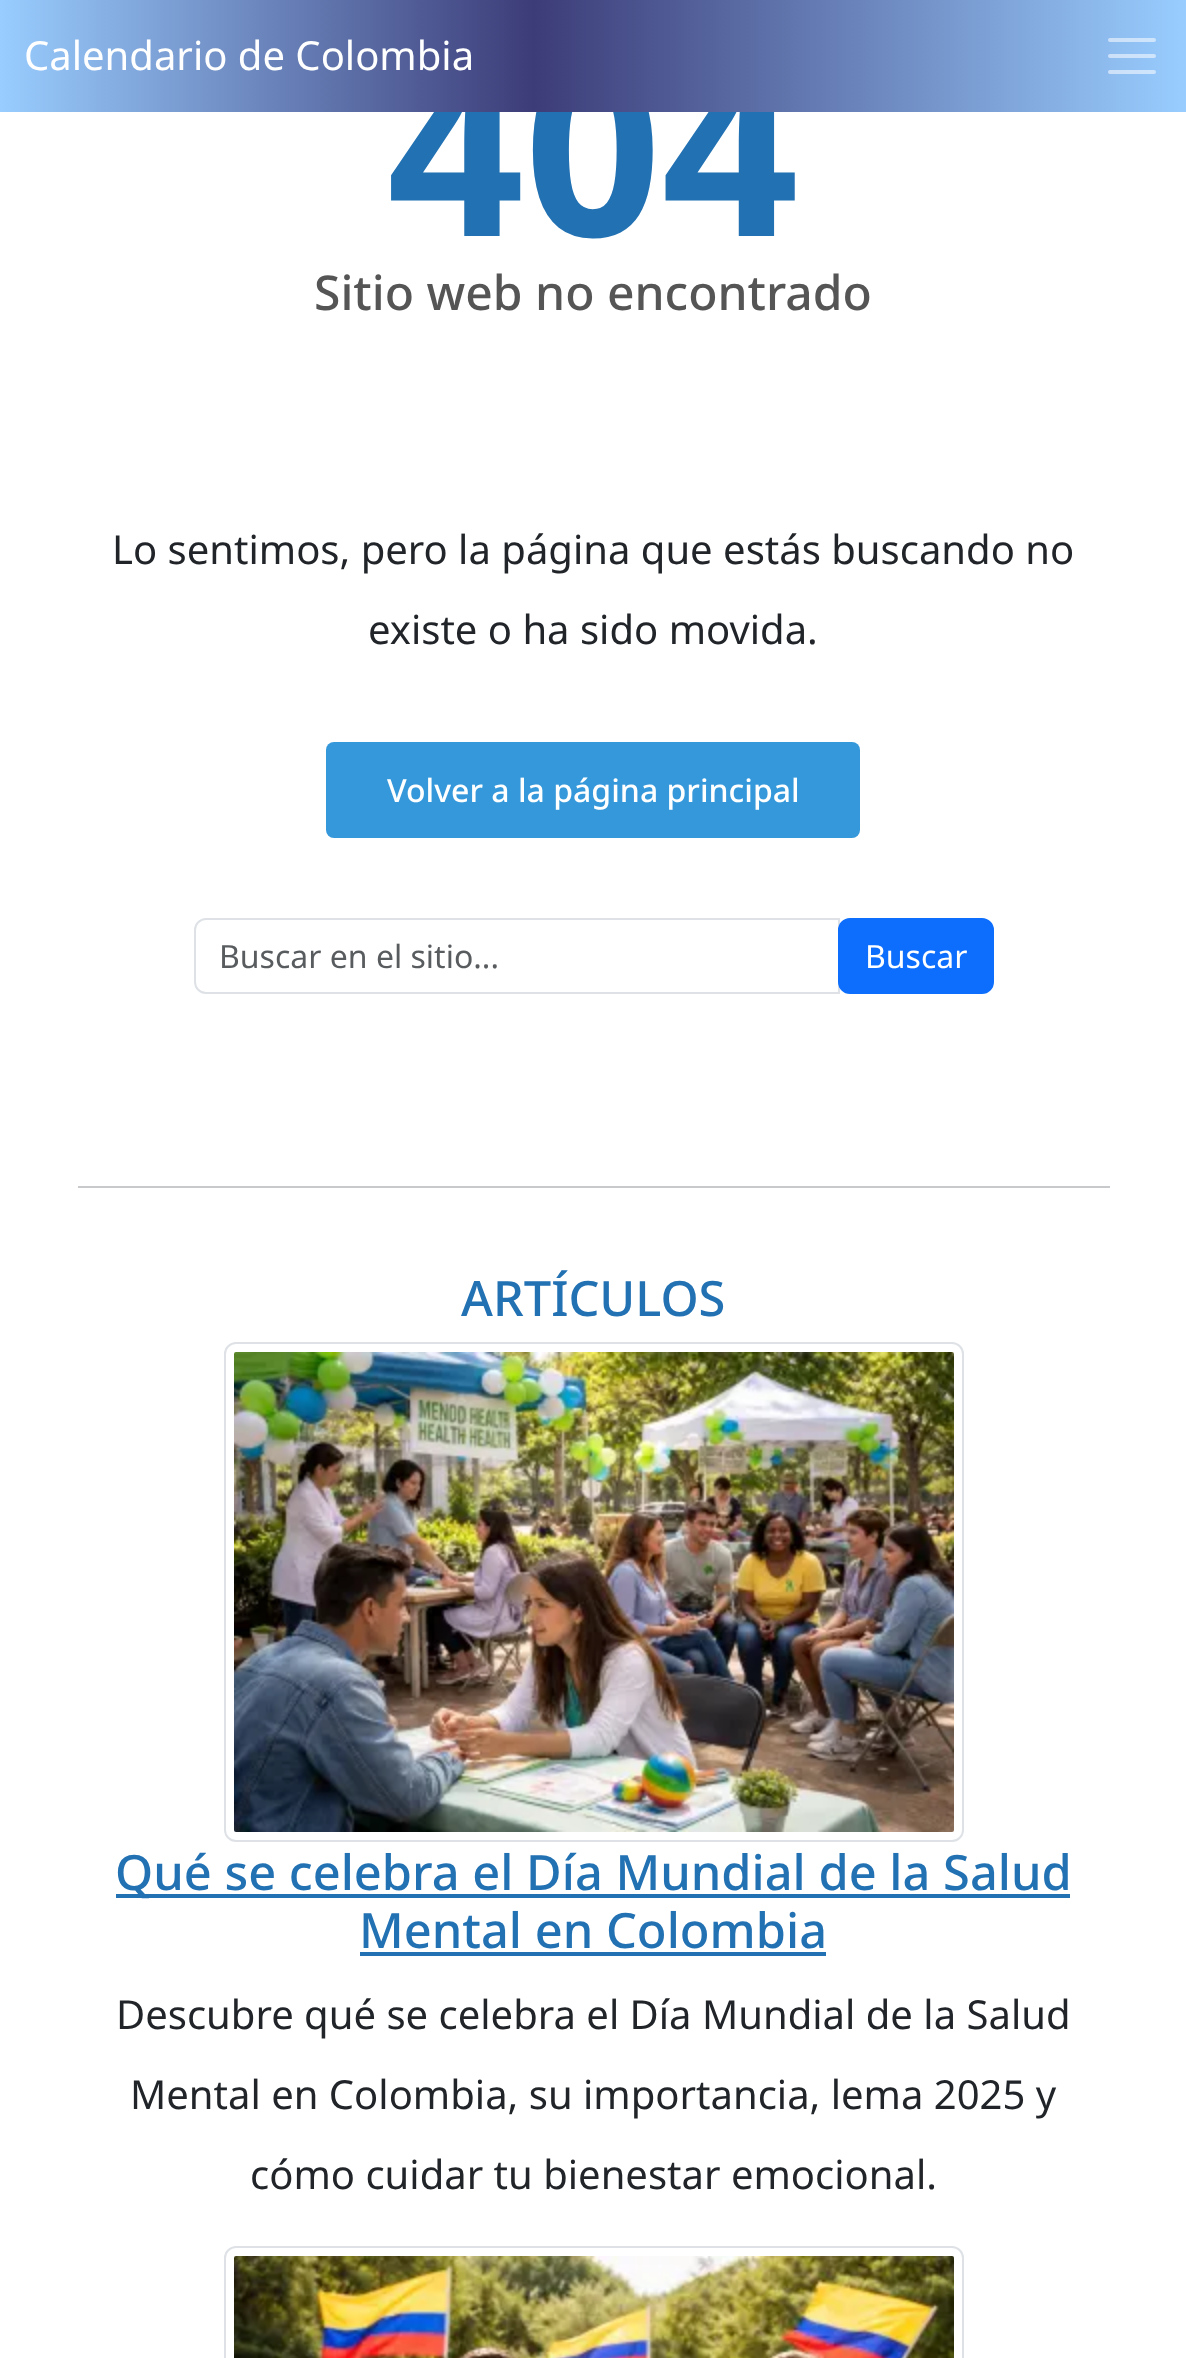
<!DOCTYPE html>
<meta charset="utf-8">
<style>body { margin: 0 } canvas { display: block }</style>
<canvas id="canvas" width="1186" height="2358"></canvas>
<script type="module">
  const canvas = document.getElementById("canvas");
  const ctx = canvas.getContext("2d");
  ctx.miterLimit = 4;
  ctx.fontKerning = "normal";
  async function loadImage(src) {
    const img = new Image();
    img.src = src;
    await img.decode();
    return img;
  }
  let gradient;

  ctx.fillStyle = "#ffffff";
  ctx.fillRect(0, 0, 1186, 2358);
  ctx.font = "bold 240px Noto Sans";
  ctx.fillStyle = "#2271b3";
  ctx.fillText("404", 387, 236);
  gradient = ctx.createLinearGradient(0, 56, 1186, 56);
  gradient.addColorStop(0, "#99cdff");
  gradient.addColorStop(0.45, "#3c3c78");
  gradient.addColorStop(1, "#99cdff");
  ctx.fillStyle = gradient;
  ctx.fillRect(0, 0, 1186, 112);
  ctx.font = "40px Noto Sans";
  ctx.fillStyle = "#ffffff";
  ctx.fillText("Calendario de Colombia", 24, 70);
  ctx.beginPath();
  ctx.moveTo(1110, 40);
  ctx.lineTo(1154, 40);
  ctx.moveTo(1110, 56);
  ctx.lineTo(1154, 56);
  ctx.moveTo(1110, 72);
  ctx.lineTo(1154, 72);
  ctx.strokeStyle = "rgba(255, 255, 255, 0.55)";
  ctx.lineWidth = 4;
  ctx.lineCap = "round";
  ctx.stroke();
  ctx.font = "500 48px Noto Sans";
  ctx.fillStyle = "#555555";
  ctx.fillText("Sitio web no encontrado", 314, 310);
  ctx.font = "40px Noto Sans";
  ctx.fillStyle = "#212529";
  ctx.fillText("Lo sentimos, pero la página que estás buscando no", 112, 564);
  ctx.fillText("existe o ha sido movida.", 368, 644);
  ctx.fillStyle = "#3498db";
  ctx.beginPath();
  ctx.roundRect(326, 742, 534, 96, 8);
  ctx.fill();
  ctx.font = "500 32px Noto Sans";
  ctx.fillStyle = "#ffffff";
  ctx.fillText("Volver a la página principal", 387, 802);
  ctx.beginPath();
  ctx.roundRect(195, 919, 644, 74, [11, 0, 0, 11]);
  ctx.strokeStyle = "#dee2e6";
  ctx.lineWidth = 2;
  ctx.stroke();
  ctx.font = "32px Noto Sans";
  ctx.fillStyle = "#595c5f";
  ctx.fillText("Buscar en el sitio...", 219, 968);
  ctx.fillStyle = "#0d6efd";
  ctx.beginPath();
  ctx.roundRect(839, 919, 154, 74, 11);
  ctx.fill();
  ctx.strokeStyle = "#0d6efd";
  ctx.stroke();
  ctx.fillStyle = "#ffffff";
  ctx.fillText("Buscar", 865, 968);
  ctx.fillStyle = "#c8c9ca";
  ctx.fillRect(78, 1186, 1032, 2);
  ctx.font = "500 48.75px Noto Sans";
  ctx.fillStyle = "#2271b3";
  ctx.fillText("ARTÍCULOS", 461, 1316);
  ctx.beginPath();
  ctx.roundRect(225, 1343, 738, 498, 11);
  ctx.strokeStyle = "#dee2e6";
  ctx.stroke();
  ctx.drawImage(await loadImage("img1.png"), 234, 1352, 720, 480);
  ctx.fillRect(116, 1894, 954, 4);
  ctx.fillText("Qué se celebra el Día Mundial de la Salud", 115, 1890);
  ctx.fillText("Mental en Colombia", 359, 1948);
  ctx.fillRect(360, 1952, 466, 4);
  ctx.font = "40px Noto Sans";
  ctx.fillStyle = "#212529";
  ctx.fillText("Descubre qué se celebra el Día Mundial de la Salud", 116, 2029);
  ctx.fillText("Mental en Colombia, su importancia, lema 2025 y", 130, 2109);
  ctx.fillText("cómo cuidar tu bienestar emocional.", 250, 2189);
  ctx.beginPath();
  ctx.roundRect(225, 2247, 738, 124, 11);
  ctx.stroke();
  ctx.drawImage(await loadImage("img2.png"), 234, 2256, 720, 102);
</script>
